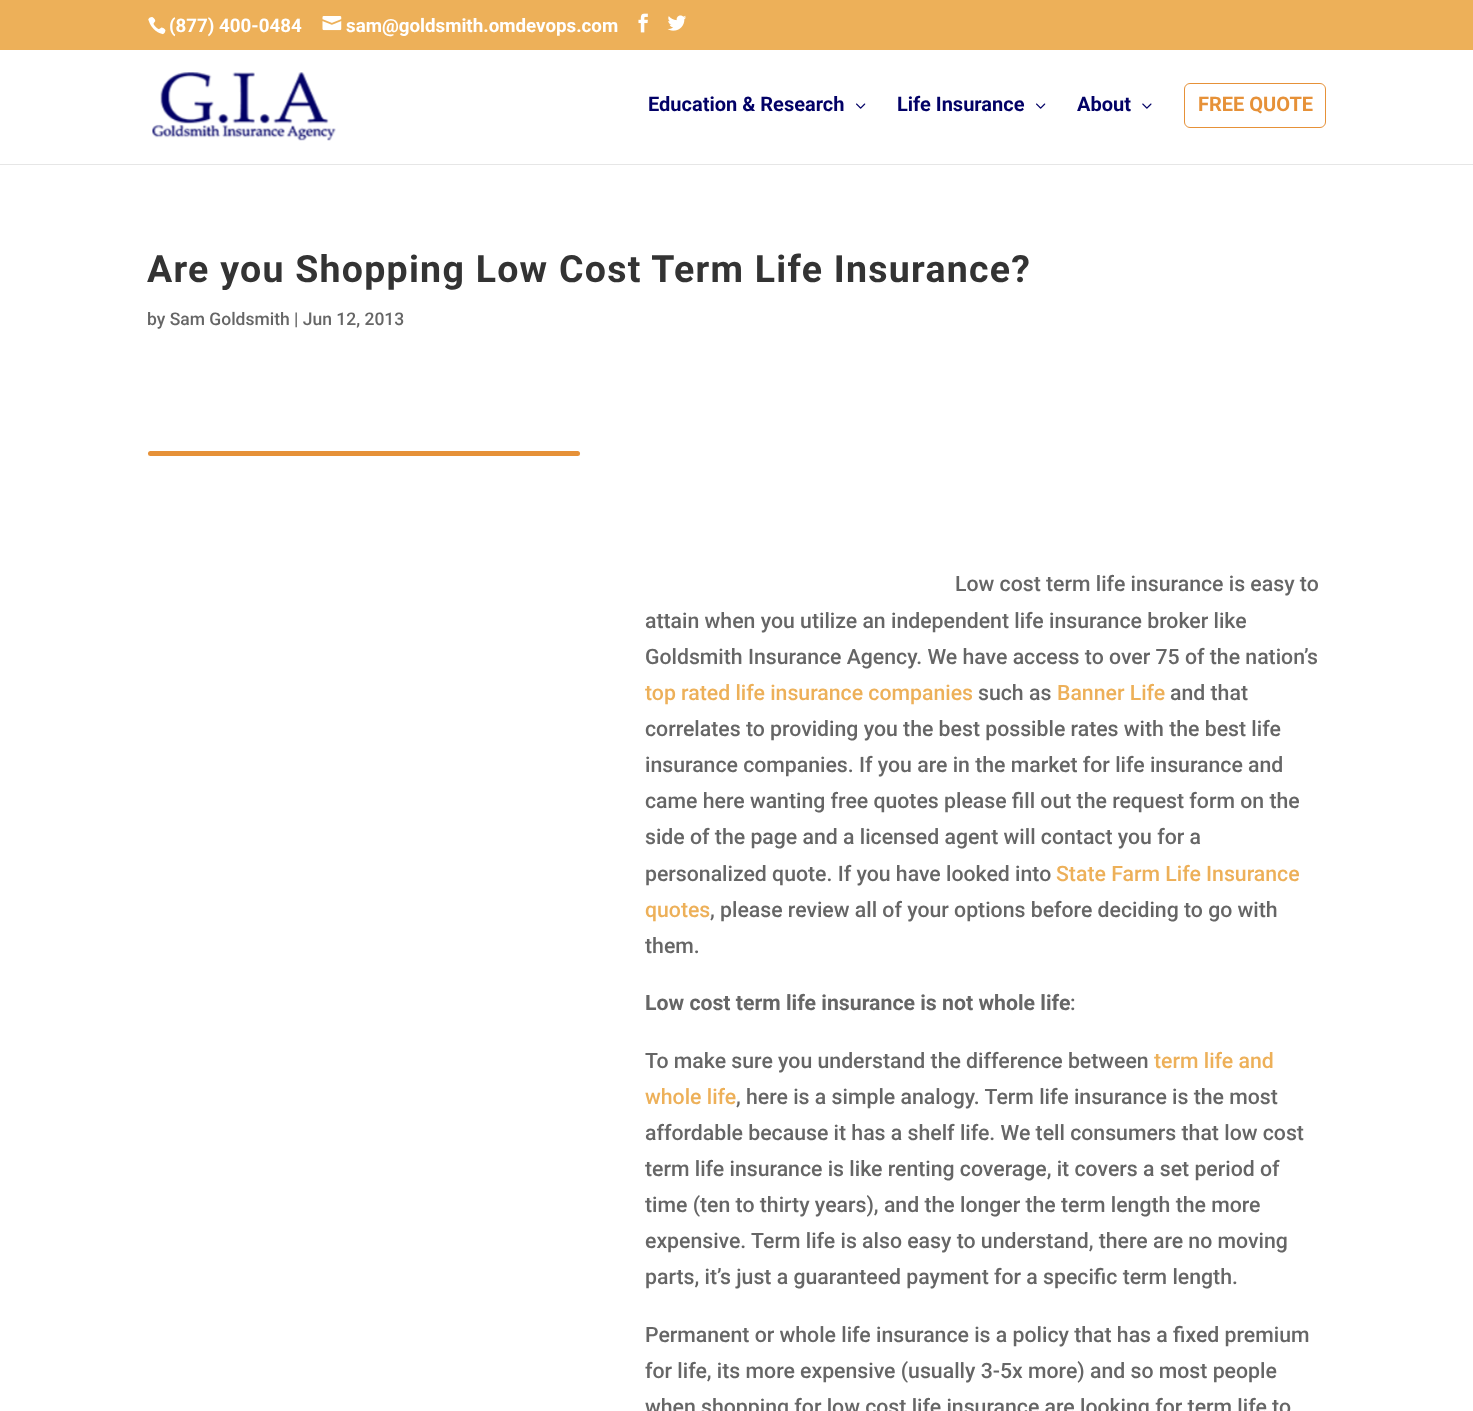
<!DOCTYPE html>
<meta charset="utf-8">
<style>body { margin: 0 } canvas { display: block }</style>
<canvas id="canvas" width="1473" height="1411"></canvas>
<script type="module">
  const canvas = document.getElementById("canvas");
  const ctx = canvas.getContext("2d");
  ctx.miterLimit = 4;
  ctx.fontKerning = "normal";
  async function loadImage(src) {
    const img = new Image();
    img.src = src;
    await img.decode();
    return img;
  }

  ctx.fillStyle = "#ffffff";
  ctx.fillRect(0, 0, 1473, 1411);
  ctx.fillStyle = "#edb059";
  ctx.fillRect(0, 0, 1473, 50);
  ctx.drawImage(await loadImage("img1.png"), 148, 17, 18, 18);
  ctx.font = "bold 18.75px Roboto";
  ctx.fillStyle = "#ffffff";
  ctx.fillText("(877) 400-0484", 169, 32);
  ctx.drawImage(await loadImage("img2.png"), 322, 16, 20, 15);
  ctx.fillText("sam@goldsmith.omdevops.com", 346, 32);
  ctx.drawImage(await loadImage("img3.png"), 638, 13, 10, 20);
  ctx.drawImage(await loadImage("img4.png"), 667, 15, 20, 16);
  ctx.fillStyle = "#e6e6e6";
  ctx.beginPath();
  ctx.moveTo(0, 164);
  ctx.lineTo(0, 165);
  ctx.lineTo(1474, 165);
  ctx.lineTo(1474, 51);
  ctx.lineTo(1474, 164);
  ctx.closePath();
  ctx.fill();
  ctx.drawImage(await loadImage("img5.png"), 152, 72, 184, 69);
  ctx.font = "bold 20px Roboto";
  ctx.fillStyle = "#020166";
  ctx.fillText("Education & Research", 648, 111);
  ctx.drawImage(await loadImage("img6.png"), 856, 103, 10, 6);
  ctx.fillText("Life Insurance", 897, 111);
  ctx.drawImage(await loadImage("img6.png"), 1036, 103, 10, 6);
  ctx.fillText("About", 1077, 111);
  ctx.drawImage(await loadImage("img7.png"), 1142, 103, 10, 6);
  ctx.beginPath();
  ctx.roundRect(1184.5, 83.5, 141, 44, 5.5);
  ctx.strokeStyle = "#e69138";
  ctx.stroke();
  ctx.fillStyle = "#e69138";
  ctx.fillText("FREE QUOTE", 1198, 111);
  ctx.letterSpacing = "1.25px";
  ctx.font = "bold 37.5px Roboto";
  ctx.fillStyle = "#333333";
  ctx.fillText("Are you Shopping Low Cost Term Life Insurance?", 147, 282);
  ctx.letterSpacing = "0px";
  ctx.font = "500 17.5px Roboto";
  ctx.fillStyle = "#666666";
  ctx.fillText("by Sam Goldsmith | Jun 12, 2013", 147, 325);
  ctx.fillStyle = "#e69138";
  ctx.beginPath();
  ctx.roundRect(148, 451, 432, 5, 2.5);
  ctx.fill();
  ctx.font = "500 21.25px Roboto";
  ctx.fillStyle = "#666666";
  ctx.fillText("Low cost term life insurance is easy to", 955, 591);
  ctx.fillText("attain when you utilize an independent life insurance broker like", 645, 628);
  ctx.fillText("Goldsmith Insurance Agency. We have access to over 75 of the nation’s", 645, 664);
  ctx.fillStyle = "#edb059";
  ctx.fillText("top rated life insurance companies", 645, 700);
  ctx.fillStyle = "#666666";
  ctx.fillText("such as", 978, 700);
  ctx.fillStyle = "#edb059";
  ctx.fillText("Banner Life", 1057, 700);
  ctx.fillStyle = "#666666";
  ctx.fillText("and that", 1170, 700);
  ctx.fillText("correlates to providing you the best possible rates with the best life", 645, 736);
  ctx.fillText("insurance companies. If you are in the market for life insurance and", 645, 772);
  ctx.fillText("came here wanting free quotes please fill out the request form on the", 645, 808);
  ctx.fillText("side of the page and a licensed agent will contact you for a", 645, 844);
  ctx.fillText("personalized quote. If you have looked into", 645, 881);
  ctx.fillStyle = "#edb059";
  ctx.fillText("State Farm Life Insurance", 1056, 881);
  ctx.fillText("quotes", 645, 917);
  ctx.fillStyle = "#666666";
  ctx.fillText(", please review all of your options before deciding to go with", 710, 917);
  ctx.fillText("them.", 645, 953);
  ctx.font = "bold 21.25px Roboto";
  ctx.fillText("Low cost term life insurance is not whole life", 645, 1010);
  ctx.font = "500 21.25px Roboto";
  ctx.fillText(":", 1070, 1010);
  ctx.fillText("To make sure you understand the difference between", 645, 1068);
  ctx.fillStyle = "#edb059";
  ctx.fillText("term life and", 1154, 1068);
  ctx.fillText("whole life", 645, 1104);
  ctx.fillStyle = "#666666";
  ctx.fillText(", here is a simple analogy. Term life insurance is the most", 736, 1104);
  ctx.fillText("affordable because it has a shelf life. We tell consumers that low cost", 645, 1140);
  ctx.fillText("term life insurance is like renting coverage, it covers a set period of", 645, 1176);
  ctx.fillText("time (ten to thirty years), and the longer the term length the more", 645, 1212);
  ctx.fillText("expensive. Term life is also easy to understand, there are no moving", 645, 1248);
  ctx.fillText("parts, it’s just a guaranteed payment for a specific term length.", 645, 1284);
  ctx.fillText("Permanent or whole life insurance is a policy that has a fixed premium", 645, 1342);
  ctx.fillText("for life, its more expensive (usually 3-5x more) and so most people", 645, 1378);
  ctx.fillText("when shopping for low cost life insurance are looking for term life to", 645, 1414);
</script>
